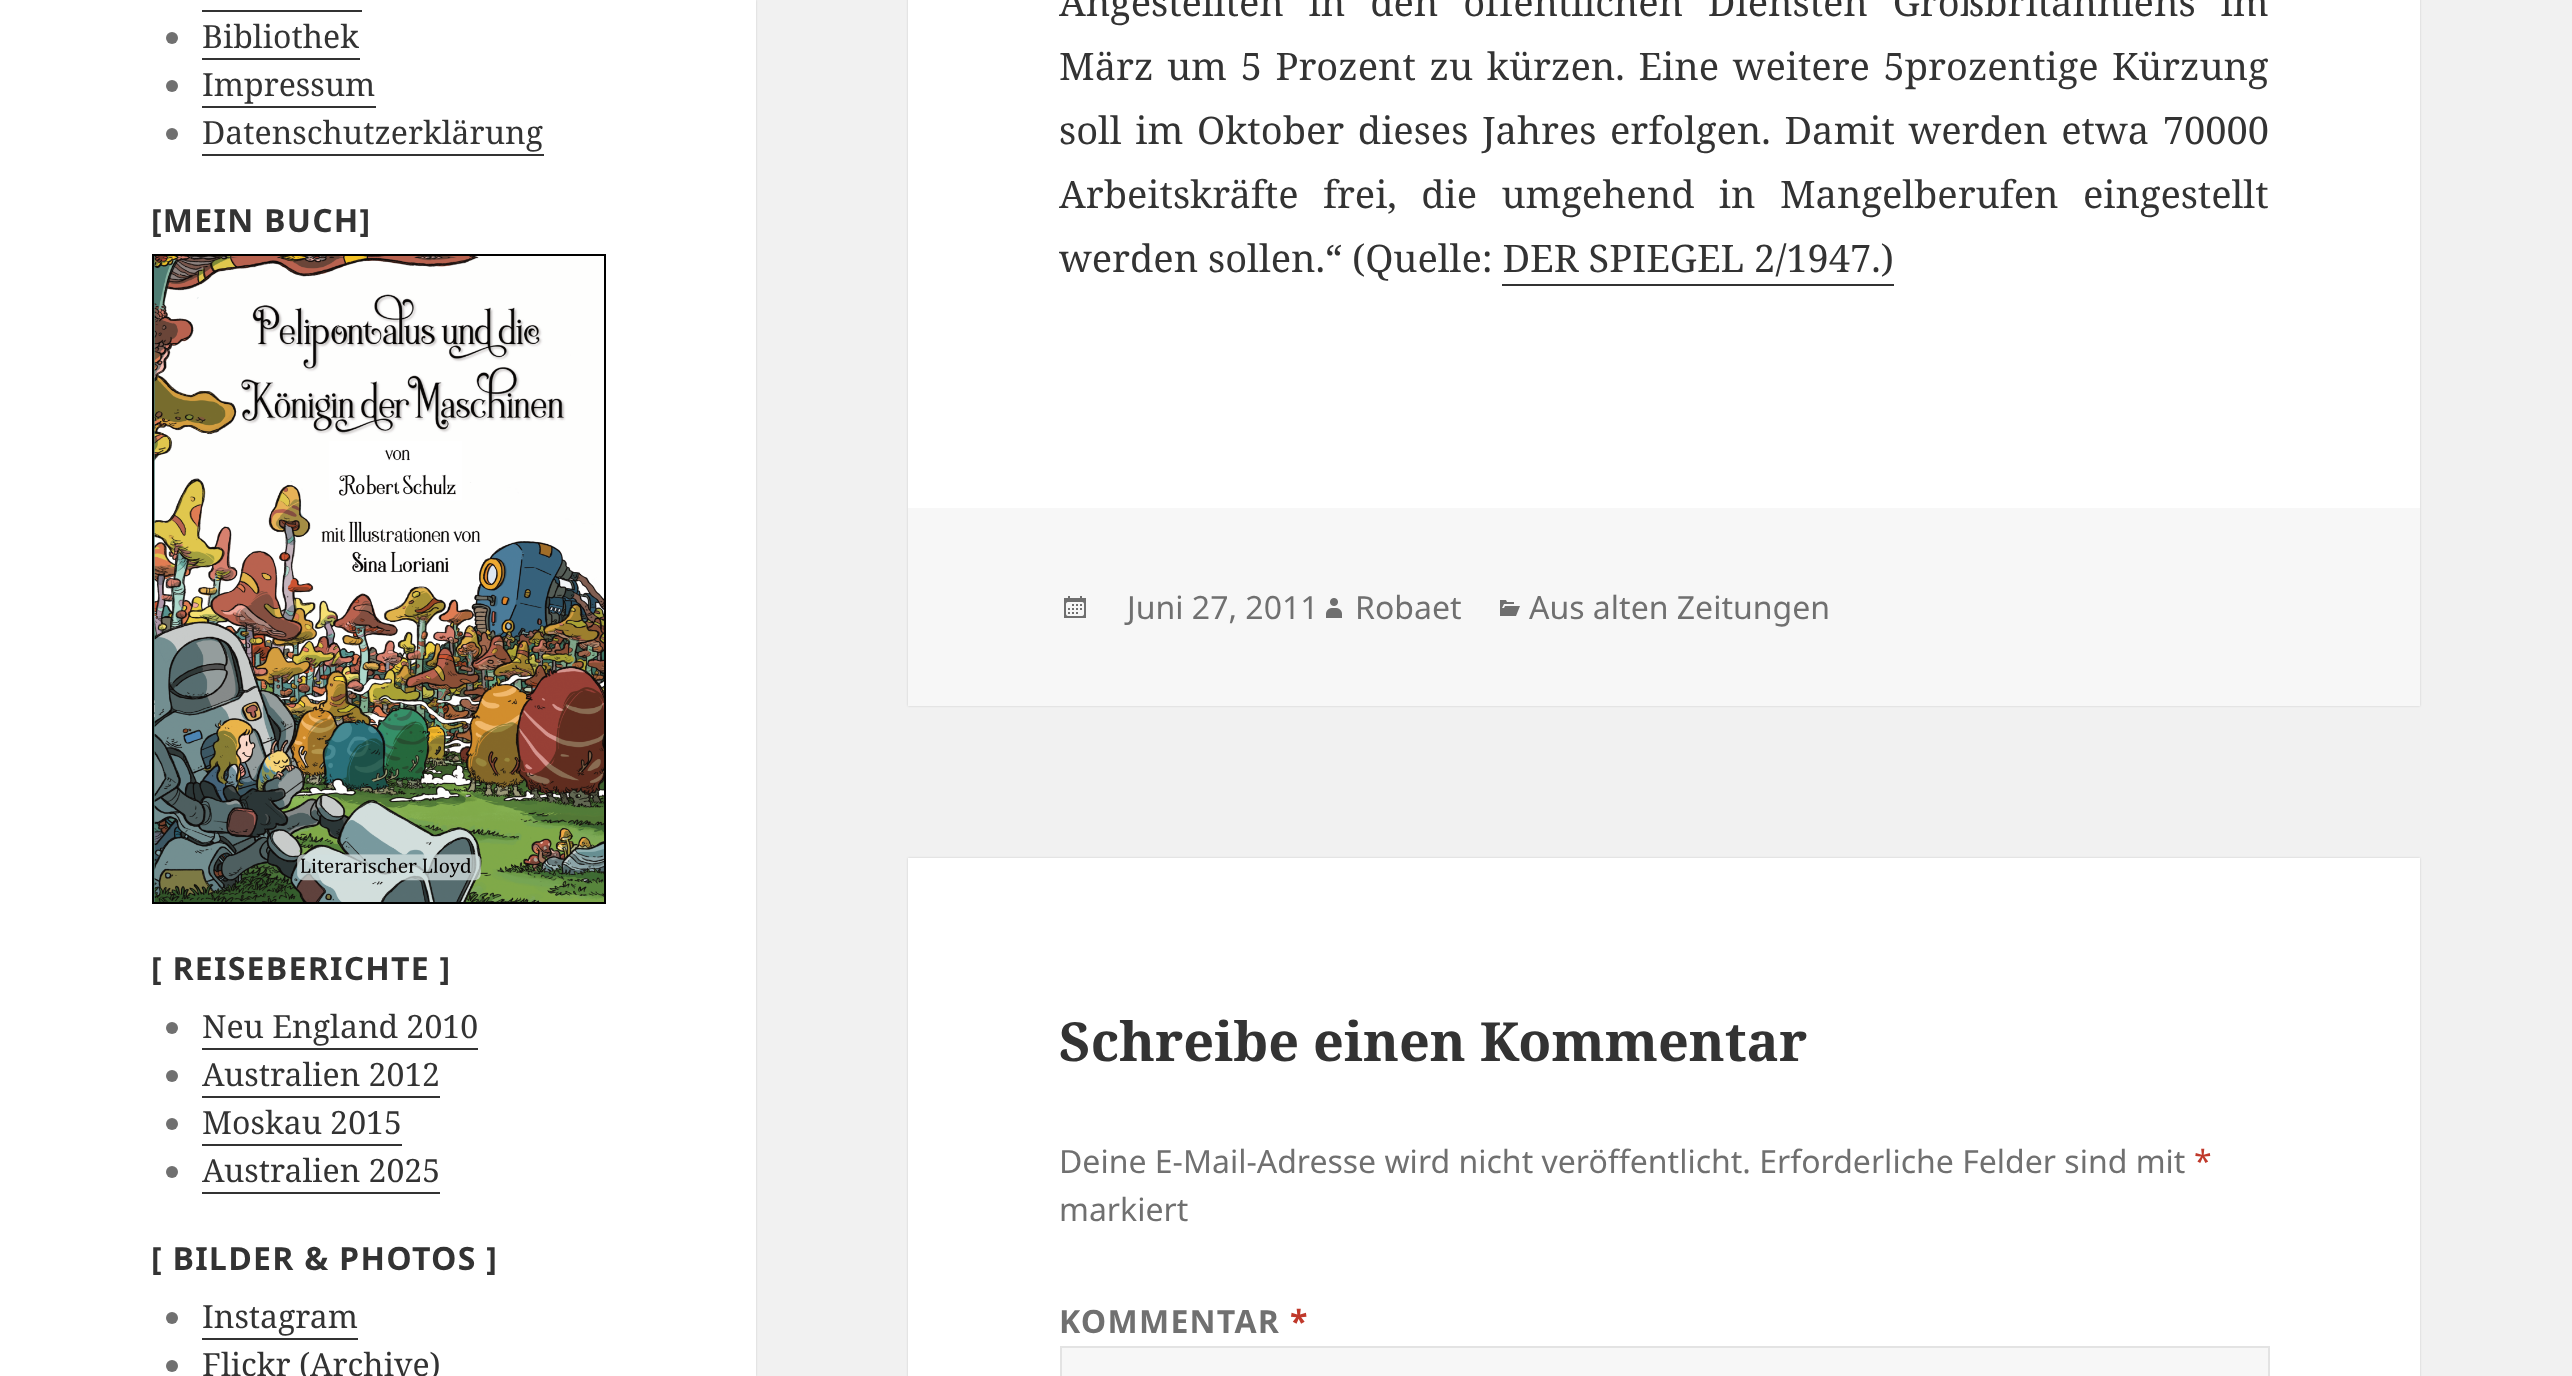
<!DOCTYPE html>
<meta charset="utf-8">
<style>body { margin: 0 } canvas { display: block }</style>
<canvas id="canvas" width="2572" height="1376"></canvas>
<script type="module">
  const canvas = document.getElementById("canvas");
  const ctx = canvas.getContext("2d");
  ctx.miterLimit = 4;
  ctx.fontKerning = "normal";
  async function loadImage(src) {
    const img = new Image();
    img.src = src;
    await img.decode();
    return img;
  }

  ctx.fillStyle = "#f1f1f1";
  ctx.fillRect(0, 0, 2572, 1376);
  ctx.fillStyle = "rgba(0, 0, 0, 0.15)";
  ctx.filter = "blur(1px)";
  ctx.beginPath();
  ctx.rect(0, 0, 756, 1376);
  ctx.fill();
  ctx.filter = "none";
  ctx.fillStyle = "#ffffff";
  ctx.fillRect(0, 0, 756, 1376);
  ctx.fillStyle = "#333333";
  ctx.fillRect(202, 10, 160, 2);
  ctx.fillStyle = "#707070";
  ctx.beginPath();
  ctx.arc(172, 38, 6, 0, Math.PI * 2);
  ctx.fill();
  ctx.font = "32px Noto Serif";
  ctx.fillStyle = "#333333";
  ctx.fillText("Bibliothek", 202, 48);
  ctx.fillRect(202, 58, 158, 2);
  ctx.fillStyle = "#707070";
  ctx.beginPath();
  ctx.arc(172, 86, 6, 0, Math.PI * 2);
  ctx.fill();
  ctx.fillStyle = "#333333";
  ctx.fillText("Impressum", 202, 96);
  ctx.fillRect(202, 106, 174, 2);
  ctx.fillStyle = "#707070";
  ctx.beginPath();
  ctx.arc(172, 134, 6, 0, Math.PI * 2);
  ctx.fill();
  ctx.fillStyle = "#333333";
  ctx.fillText("Datenschutzerklärung", 202, 144);
  ctx.fillRect(202, 154, 342, 2);
  ctx.letterSpacing = "1.25px";
  ctx.font = "bold 32px Noto Sans";
  ctx.fillText("[MEIN BUCH]", 151, 232);
  ctx.strokeStyle = "#000000";
  ctx.lineWidth = 2;
  ctx.strokeRect(153, 255, 452, 648);
  ctx.drawImage(await loadImage("img1.png"), 154, 256, 450, 646);
  ctx.fillText("[ REISEBERICHTE ]", 151, 980);
  ctx.fillStyle = "#707070";
  ctx.beginPath();
  ctx.arc(172, 1028, 6, 0, Math.PI * 2);
  ctx.fill();
  ctx.letterSpacing = "0px";
  ctx.font = "32px Noto Serif";
  ctx.fillStyle = "#333333";
  ctx.fillText("Neu England 2010", 202, 1038);
  ctx.fillRect(202, 1048, 276, 2);
  ctx.fillStyle = "#707070";
  ctx.beginPath();
  ctx.arc(172, 1076, 6, 0, Math.PI * 2);
  ctx.fill();
  ctx.fillStyle = "#333333";
  ctx.fillText("Australien 2012", 202, 1086);
  ctx.fillRect(202, 1096, 238, 2);
  ctx.fillStyle = "#707070";
  ctx.beginPath();
  ctx.arc(172, 1124, 6, 0, Math.PI * 2);
  ctx.fill();
  ctx.fillStyle = "#333333";
  ctx.fillText("Moskau 2015", 202, 1134);
  ctx.fillRect(202, 1144, 200, 2);
  ctx.fillStyle = "#707070";
  ctx.beginPath();
  ctx.arc(172, 1172, 6, 0, Math.PI * 2);
  ctx.fill();
  ctx.fillStyle = "#333333";
  ctx.fillText("Australien 2025", 202, 1182);
  ctx.fillRect(202, 1192, 238, 2);
  ctx.letterSpacing = "1.25px";
  ctx.font = "bold 32px Noto Sans";
  ctx.fillText("[ BILDER & PHOTOS ]", 151, 1270);
  ctx.fillStyle = "#707070";
  ctx.beginPath();
  ctx.arc(172, 1318, 6, 0, Math.PI * 2);
  ctx.fill();
  ctx.letterSpacing = "0px";
  ctx.font = "32px Noto Serif";
  ctx.fillStyle = "#333333";
  ctx.fillText("Instagram", 202, 1328);
  ctx.fillRect(202, 1338, 156, 2);
  ctx.fillStyle = "#707070";
  ctx.beginPath();
  ctx.arc(172, 1366, 6, 0, Math.PI * 2);
  ctx.fill();
  ctx.fillStyle = "#333333";
  ctx.fillText("Flickr (Archive)", 202, 1376);
  ctx.fillStyle = "rgba(0, 0, 0, 0.15)";
  ctx.filter = "blur(1px)";
  ctx.beginPath();
  ctx.rect(908, -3, 1512, 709);
  ctx.fill();
  ctx.filter = "none";
  ctx.fillStyle = "#ffffff";
  ctx.fillRect(908, 0, 1512, 508);
  ctx.wordSpacing = "15px";
  ctx.font = "38px Noto Serif";
  ctx.fillStyle = "#333333";
  ctx.fillText("Angestellten in den öffentlichen Diensten Großbritanniens im", 1059, 16);
  ctx.wordSpacing = "3.75px";
  ctx.fillText("März um 5 Prozent zu kürzen. Eine weitere 5prozentige Kürzung", 1059, 80);
  ctx.fillText("soll im Oktober dieses Jahres erfolgen. Damit werden etwa 70000", 1059, 144);
  ctx.wordSpacing = "14.5px";
  ctx.fillText("Arbeitskräfte frei, die umgehend in Mangelberufen eingestellt", 1059, 208);
  ctx.wordSpacing = "0px";
  ctx.fillText("werden sollen.“ (Quelle: DER SPIEGEL 2/1947.)", 1059, 272);
  ctx.fillRect(1502, 284, 392, 2);
  ctx.fillStyle = "#f7f7f7";
  ctx.fillRect(908, 508, 1512, 198);
  ctx.drawImage(await loadImage("img2.png"), 1064, 596, 22, 22);
  ctx.font = "32px Noto Sans";
  ctx.fillStyle = "#707070";
  ctx.fillText("Juni 27, 2011", 1127, 619);
  ctx.drawImage(await loadImage("img3.png"), 1326, 598, 16, 20);
  ctx.fillText("Robaet", 1355, 619);
  ctx.drawImage(await loadImage("img4.png"), 1500, 600, 20, 16);
  ctx.fillText("Aus alten Zeitungen", 1529, 619);
  ctx.fillStyle = "rgba(0, 0, 0, 0.15)";
  ctx.filter = "blur(1px)";
  ctx.beginPath();
  ctx.rect(908, 858, 1512, 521);
  ctx.fill();
  ctx.filter = "none";
  ctx.fillStyle = "#ffffff";
  ctx.fillRect(908, 858, 1512, 518);
  ctx.font = "bold 54px Noto Serif";
  ctx.fillStyle = "#333333";
  ctx.fillText("Schreibe einen Kommentar", 1059, 1061);
  ctx.font = "32px Noto Sans";
  ctx.fillStyle = "#707070";
  ctx.fillText("Deine E-Mail-Adresse wird nicht veröffentlicht. Erforderliche Felder sind mit", 1059, 1173);
  ctx.fillStyle = "#c0392b";
  ctx.fillText("*", 2194, 1173);
  ctx.fillStyle = "#707070";
  ctx.fillText("markiert", 1059, 1221);
  ctx.letterSpacing = "1.25px";
  ctx.font = "bold 32px Noto Sans";
  ctx.fillText("KOMMENTAR", 1059, 1333);
  ctx.fillStyle = "#c0392b";
  ctx.fillText("*", 1290, 1333);
  ctx.fillStyle = "#f7f7f7";
  ctx.beginPath();
  ctx.rect(1061, 1347, 1208, 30);
  ctx.fill();
  ctx.strokeStyle = "#e3e3e3";
  ctx.stroke();
</script>
